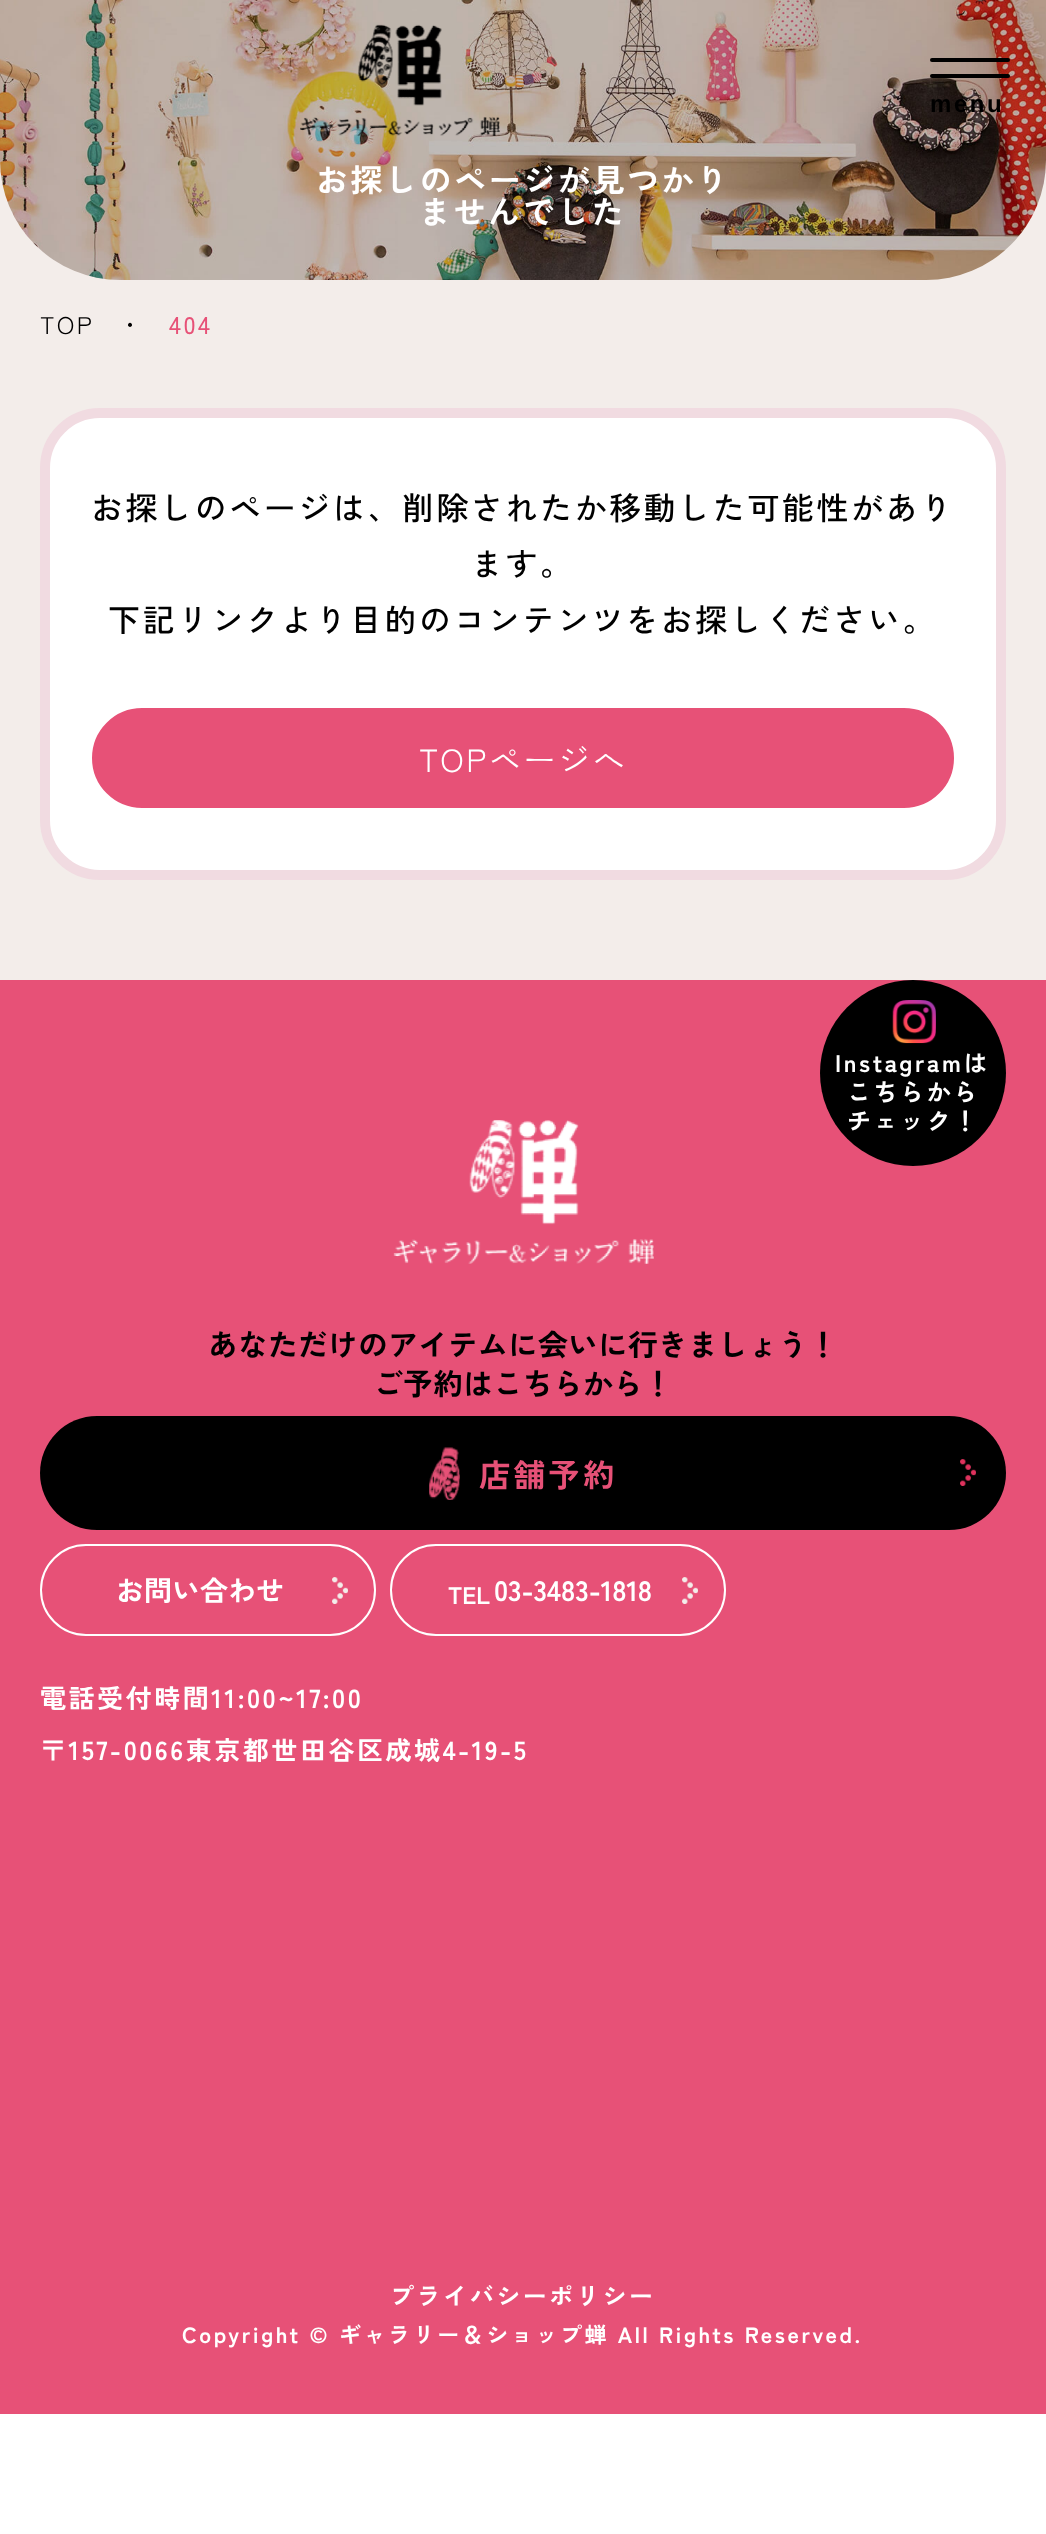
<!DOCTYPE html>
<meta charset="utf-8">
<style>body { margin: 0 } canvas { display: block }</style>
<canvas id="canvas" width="1046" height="2534"></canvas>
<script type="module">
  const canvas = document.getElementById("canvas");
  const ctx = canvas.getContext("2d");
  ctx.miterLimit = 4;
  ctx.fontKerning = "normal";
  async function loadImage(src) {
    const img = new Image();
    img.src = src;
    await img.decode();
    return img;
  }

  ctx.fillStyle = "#ffffff";
  ctx.fillRect(0, 0, 1046, 2534);
  ctx.fillStyle = "#f3edea";
  ctx.fillRect(0, 160, 1046, 820);
  ctx.drawImage(await loadImage("img2.png"), 0, 0, 1046, 280);
  ctx.drawImage(await loadImage("img1.png"), 300, 24, 200, 112);
  ctx.fillStyle = "#000000";
  ctx.beginPath();
  ctx.roundRect(930, 58, 80, 4, 2);
  ctx.fill();
  ctx.beginPath();
  ctx.roundRect(930, 74, 80, 4, 2);
  ctx.fill();
  ctx.letterSpacing = "2.55px";
  ctx.font = "bold 24px Liberation Sans";
  ctx.fillText("menu", 930, 112);
  ctx.font = "bold 32px Zen Kaku Gothic New";
  ctx.fillStyle = "#ffffff";
  ctx.fillText("お探しのページが見つかり", 316, 192);
  ctx.fillText("ませんでした", 419, 224);
  ctx.font = "24px Zen Kaku Gothic New";
  ctx.fillStyle = "#000000";
  ctx.fillText("TOP", 40, 334);
  ctx.fillText("・", 118, 334);
  ctx.font = "500 24px Zen Kaku Gothic New";
  ctx.fillStyle = "#e75177";
  ctx.fillText("404", 169, 334);
  ctx.fillStyle = "#ffffff";
  ctx.beginPath();
  ctx.roundRect(45, 413, 956, 462, 55);
  ctx.fill();
  ctx.strokeStyle = "#f1dbe1";
  ctx.lineWidth = 10;
  ctx.stroke();
  ctx.font = "500 32px Zen Kaku Gothic New";
  ctx.fillStyle = "#000000";
  ctx.fillText("お探しのページは、削除されたか移動した可能性があり", 91, 520);
  ctx.fillText("ます。", 471, 576);
  ctx.fillText("下記リンクより目的のコンテンツをお探しください。", 108, 632);
  ctx.fillStyle = "#e75177";
  ctx.beginPath();
  ctx.roundRect(91, 707, 864, 102, 51);
  ctx.fill();
  ctx.strokeStyle = "#ffffff";
  ctx.lineWidth = 2;
  ctx.stroke();
  ctx.font = "32px Zen Kaku Gothic New";
  ctx.fillStyle = "#ffffff";
  ctx.fillText("TOPページへ", 419, 772);
  ctx.fillStyle = "#e75177";
  ctx.fillRect(0, 980, 1046, 1434);
  ctx.fillStyle = "#000000";
  ctx.beginPath();
  ctx.arc(913, 1073, 93, 0, Math.PI * 2);
  ctx.fill();
  ctx.drawImage(await loadImage("img3.png"), 892, 1000, 44, 44);
  ctx.font = "bold 24px Zen Kaku Gothic New";
  ctx.fillStyle = "#ffffff";
  ctx.fillText("Instagramは", 835, 1072);
  ctx.fillText("こちらから", 847, 1101);
  ctx.fillText("チェック！", 847, 1130);
  ctx.drawImage(await loadImage("img4.png"), 393, 1120, 261, 144);
  ctx.letterSpacing = "0px";
  ctx.font = "bold 30px Zen Kaku Gothic New";
  ctx.fillStyle = "#000000";
  ctx.fillText("あなただけのアイテムに会いに行きましょう！", 208, 1356);
  ctx.fillText("ご予約はこちらから！", 373, 1395);
  ctx.beginPath();
  ctx.roundRect(40, 1416, 966, 114, 57);
  ctx.fill();
  ctx.drawImage(await loadImage("img5.png"), 429, 1447, 31, 53);
  ctx.letterSpacing = "2.55px";
  ctx.font = "bold 32px Zen Kaku Gothic New";
  ctx.fillStyle = "#e75177";
  ctx.fillText("店舗予約", 479, 1487);
  ctx.drawImage(await loadImage("img6.png"), 960, 1459, 16, 27);
  ctx.beginPath();
  ctx.roundRect(41, 1545, 334, 90, 45);
  ctx.stroke();
  ctx.letterSpacing = "0px";
  ctx.font = "bold 28px Zen Kaku Gothic New";
  ctx.fillStyle = "#ffffff";
  ctx.fillText("お問い合わせ", 116, 1601);
  ctx.drawImage(await loadImage("img7.png"), 332, 1577, 16, 27);
  ctx.beginPath();
  ctx.roundRect(391, 1545, 334, 90, 45);
  ctx.stroke();
  ctx.font = "bold 24px Zen Kaku Gothic New";
  ctx.fillText("TEL", 448, 1604);
  ctx.font = "bold 28px Zen Kaku Gothic New";
  ctx.fillText("03-3483-1818", 494, 1601);
  ctx.drawImage(await loadImage("img7.png"), 682, 1577, 16, 27);
  ctx.letterSpacing = "2.55px";
  ctx.font = "bold 26px Zen Kaku Gothic New";
  ctx.fillText("電話受付時間11:00~17:00", 40, 1708);
  ctx.fillText("〒157-0066東京都世田谷区成城4-19-5", 40, 1760);
  ctx.font = "bold 24px Zen Kaku Gothic New";
  ctx.fillText("プライバシーポリシー", 390, 2305);
  ctx.font = "bold 22px Zen Kaku Gothic New";
  ctx.fillText("Copyright © ギャラリー＆ショップ蝉 All Rights Reserved.", 182, 2343);
</script>
